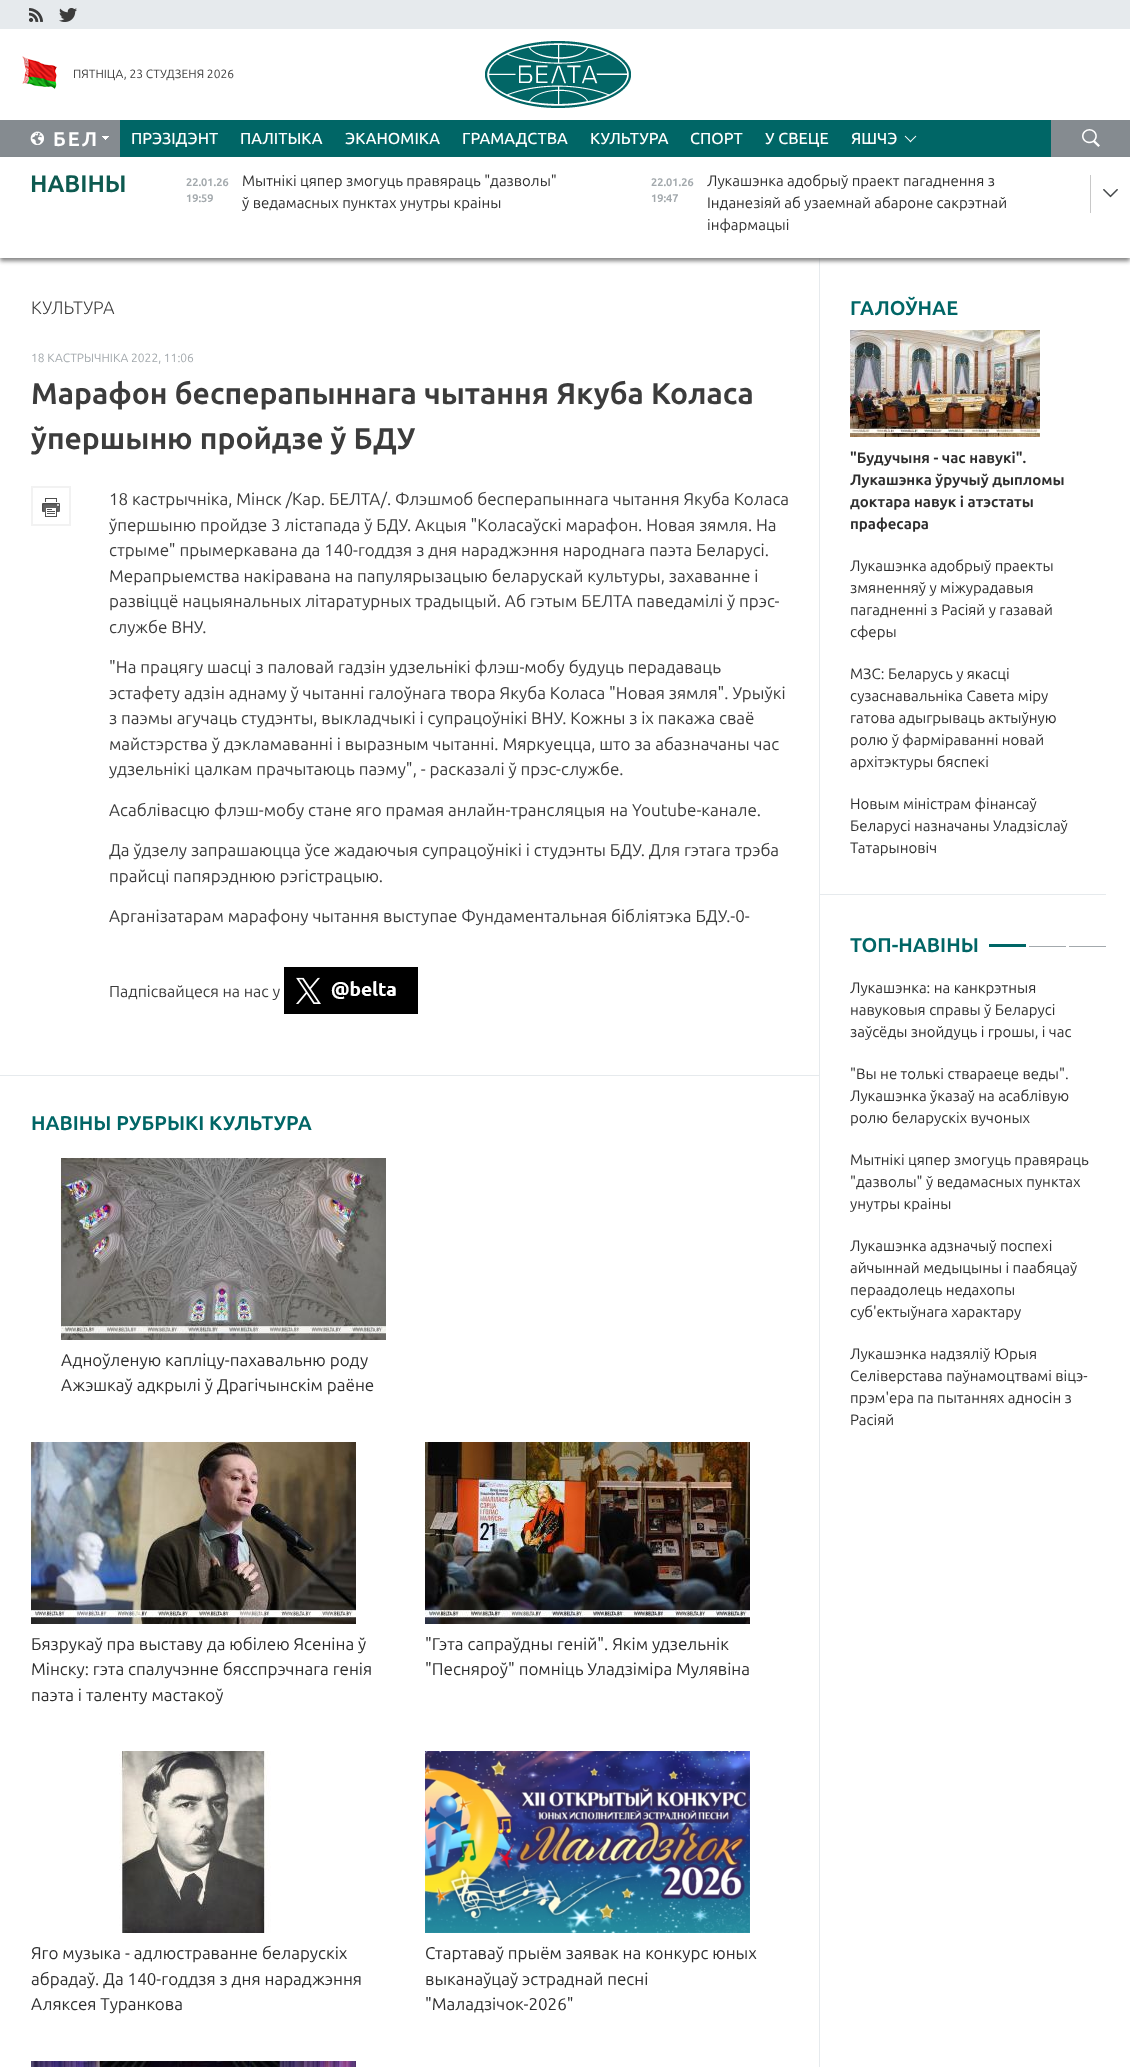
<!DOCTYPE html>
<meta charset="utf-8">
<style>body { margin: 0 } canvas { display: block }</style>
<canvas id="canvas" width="1130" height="2067"></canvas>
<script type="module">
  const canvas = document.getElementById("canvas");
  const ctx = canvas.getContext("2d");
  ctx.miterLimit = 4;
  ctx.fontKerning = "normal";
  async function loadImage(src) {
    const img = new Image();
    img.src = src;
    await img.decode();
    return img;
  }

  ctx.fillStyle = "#ffffff";
  ctx.fillRect(0, 0, 1130, 2067);
  ctx.fillStyle = "#e6eaed";
  ctx.fillRect(0, 0, 1130, 29);
  ctx.drawImage(await loadImage("img1.png"), 29, 8, 14, 14);
  ctx.drawImage(await loadImage("img2.png"), 59, 8, 18, 14);
  ctx.drawImage(await loadImage("img3.png"), 22, 56, 35, 33);
  ctx.font = "12px Ubuntu";
  ctx.fillStyle = "#3c3c3c";
  ctx.fillText("ПЯТНІЦА, 23 СТУДЗЕНЯ 2026", 73, 78);
  ctx.drawImage(await loadImage("img4.png"), 485, 41, 146, 67);
  ctx.fillStyle = "#006666";
  ctx.fillRect(120, 120, 931, 37);
  ctx.fillStyle = "#858b90";
  ctx.fillRect(0, 120, 120, 37);
  ctx.drawImage(await loadImage("img5.png"), 30, 131, 14, 14);
  ctx.letterSpacing = "2px";
  ctx.font = "bold 20px Ubuntu";
  ctx.fillStyle = "#ffffff";
  ctx.fillText("БЕЛ", 53, 146);
  ctx.drawImage(await loadImage("img6.png"), 102, 136, 7, 4);
  ctx.letterSpacing = "0px";
  ctx.font = "500 16px Ubuntu";
  ctx.fillText("ПРЭЗІДЭНТ", 131, 144);
  ctx.fillText("ПАЛІТЫКА", 240, 144);
  ctx.fillText("ЭКАНОМІКА", 345, 144);
  ctx.fillText("ГРАМАДСТВА", 462, 144);
  ctx.fillText("КУЛЬТУРА", 590, 144);
  ctx.fillText("СПОРТ", 690, 144);
  ctx.fillText("У СВЕЦЕ", 765, 144);
  ctx.fillText("ЯШЧЭ", 851, 144);
  ctx.drawImage(await loadImage("img7.png"), 904, 135, 13, 8);
  ctx.fillStyle = "#858b90";
  ctx.fillRect(1051, 120, 79, 37);
  ctx.drawImage(await loadImage("img8.png"), 1082, 129, 18, 18);
  ctx.fillStyle = "#e6eaed";
  ctx.fillRect(819, 258, 1, 1809);
  ctx.save();
  ctx.beginPath();
  ctx.moveTo(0, 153);
  ctx.lineTo(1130, 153);
  ctx.lineTo(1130, 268);
  ctx.lineTo(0, 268);
  ctx.closePath();
  ctx.moveTo(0, 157);
  ctx.lineTo(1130, 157);
  ctx.lineTo(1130, 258);
  ctx.lineTo(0, 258);
  ctx.closePath();
  ctx.clip("evenodd");
  ctx.fillStyle = "rgba(100, 100, 100, 0.8)";
  ctx.filter = "blur(2px)";
  ctx.beginPath();
  ctx.rect(0, 160, 1130, 101);
  ctx.fill();
  ctx.filter = "none";
  ctx.restore();
  ctx.font = "bold 24px Ubuntu";
  ctx.fillStyle = "#0d5a50";
  ctx.fillText("НАВІНЫ", 30, 192);
  ctx.font = "bold 11px Ubuntu";
  ctx.fillStyle = "#a3a9ad";
  ctx.fillText("22.01.26", 186, 186);
  ctx.fillText("19:59", 186, 202);
  ctx.font = "15px Ubuntu";
  ctx.fillStyle = "#2e2e2e";
  ctx.fillText("Мытнікі цяпер змогуць правяраць \"дазволы\"", 242, 186);
  ctx.fillText("ў ведамасных пунктах унутры краіны", 242, 208);
  ctx.font = "bold 11px Ubuntu";
  ctx.fillStyle = "#a3a9ad";
  ctx.fillText("22.01.26", 651, 186);
  ctx.fillText("19:47", 651, 202);
  ctx.font = "15px Ubuntu";
  ctx.fillStyle = "#2e2e2e";
  ctx.fillText("Лукашэнка адобрыў праект пагаднення з", 707, 186);
  ctx.fillText("Інданезіяй аб узаемнай абароне сакрэтнай", 707, 208);
  ctx.fillText("інфармацыі", 707, 230);
  ctx.drawImage(await loadImage("img9.png"), 1103, 189, 15, 9);
  ctx.fillStyle = "#c8c8c8";
  ctx.fillRect(1090, 175, 1, 38);
  ctx.font = "300 18px Ubuntu";
  ctx.fillStyle = "#3c3c3c";
  ctx.fillText("КУЛЬТУРА", 31, 314);
  ctx.font = "12px Ubuntu";
  ctx.fillStyle = "#a3a9ad";
  ctx.fillText("18 КАСТРЫЧНІКА 2022, 11:06", 31, 362);
  ctx.font = "bold 30px Ubuntu";
  ctx.fillStyle = "#3c3c3c";
  ctx.fillText("Марафон бесперапыннага чытання Якуба Коласа", 31, 404);
  ctx.fillText("ўпершыню пройдзе ў БДУ", 31, 449);
  ctx.drawImage(await loadImage("img10.png"), 31, 486, 40, 40);
  ctx.font = "17px Ubuntu";
  ctx.fillText("18 кастрычніка, Мінск /Кар. БЕЛТА/. Флэшмоб бесперапыннага чытання Якуба Коласа", 109, 505);
  ctx.fillText("ўпершыню пройдзе 3 лістапада ў БДУ. Акцыя \"Коласаўскі марафон. Новая зямля. На", 109, 531);
  ctx.fillText("стрыме\" прымеркавана да 140-годдзя з дня нараджэння народнага паэта Беларусі.", 109, 556);
  ctx.fillText("Мерапрыемства накіравана на папулярызацыю беларускай культуры, захаванне і", 109, 582);
  ctx.fillText("развіццё нацыянальных літаратурных традыцый. Аб гэтым БЕЛТА паведамілі ў прэс-", 109, 607);
  ctx.fillText("службе ВНУ.", 109, 633);
  ctx.fillText("\"На працягу шасці з паловай гадзін удзельнікі флэш-мобу будуць перадаваць", 109, 673);
  ctx.fillText("эстафету адзін аднаму ў чытанні галоўнага твора Якуба Коласа \"Новая зямля\". Урыўкі", 109, 699);
  ctx.fillText("з паэмы агучаць студэнты, выкладчыкі і супрацоўнікі ВНУ. Кожны з іх пакажа сваё", 109, 724);
  ctx.fillText("майстэрства ў дэкламаванні і выразным чытанні. Мяркуецца, што за абазначаны час", 109, 750);
  ctx.fillText("удзельнікі цалкам прачытаюць паэму\", - расказалі ў прэс-службе.", 109, 775);
  ctx.fillText("Асаблівасцю флэш-мобу стане яго прамая анлайн-трансляцыя на Youtube-канале.", 109, 816);
  ctx.fillText("Да ўдзелу запрашаюцца ўсе жадаючыя супрацоўнікі і студэнты БДУ. Для гэтага трэба", 109, 856);
  ctx.fillText("прайсці папярэднюю рэгістрацыю.", 109, 882);
  ctx.fillText("Арганізатарам марафону чытання выступае Фундаментальная бібліятэка БДУ.-0-", 109, 922);
  ctx.font = "16px Ubuntu";
  ctx.fillText("Падпісвайцеся на нас у", 109, 997);
  ctx.drawImage(await loadImage("img11.png"), 284, 967, 134, 47);
  ctx.fillStyle = "#e6eaed";
  ctx.fillRect(0, 1075, 819, 1);
  ctx.font = "bold 20px Ubuntu";
  ctx.fillStyle = "#006666";
  ctx.fillText("НАВІНЫ РУБРЫКІ КУЛЬТУРА", 31, 1130);
  ctx.drawImage(await loadImage("img12.png"), 61, 1158, 325, 182);
  ctx.font = "17px Ubuntu";
  ctx.fillStyle = "#2e2e2e";
  ctx.fillText("Адноўленую капліцу-пахавальню роду", 61, 1366);
  ctx.fillText("Ажэшкаў адкрылі ў Драгічынскім раёне", 61, 1391);
  ctx.drawImage(await loadImage("img13.png"), 31, 1442, 325, 182);
  ctx.fillText("Бязрукаў пра выставу да юбілею Ясеніна ў", 31, 1650);
  ctx.fillText("Мінску: гэта спалучэнне бясспрэчнага генія", 31, 1675);
  ctx.fillText("паэта і таленту мастакоў", 31, 1701);
  ctx.drawImage(await loadImage("img14.png"), 425, 1442, 325, 182);
  ctx.fillText("\"Гэта сапраўдны геній\". Якім удзельнік", 425, 1650);
  ctx.fillText("\"Песняроў\" помніць Уладзіміра Мулявіна", 425, 1675);
  ctx.drawImage(await loadImage("img15.png"), 119, 1751, 152, 182);
  ctx.fillText("Яго музыка - адлюстраванне беларускіх", 31, 1959);
  ctx.fillText("абрадаў. Да 140-годдзя з дня нараджэння", 31, 1985);
  ctx.fillText("Аляксея Туранкова", 31, 2010);
  ctx.drawImage(await loadImage("img16.png"), 425, 1751, 325, 182);
  ctx.fillText("Стартаваў прыём заявак на конкурс юных", 425, 1959);
  ctx.fillText("выканаўцаў эстраднай песні", 425, 1985);
  ctx.fillText("\"Маладзічок-2026\"", 425, 2010);
  ctx.drawImage(await loadImage("img17.png"), 31, 2061, 325, 6);
  ctx.fillStyle = "#e6eaed";
  ctx.fillRect(819, 894, 287, 1);
  ctx.font = "bold 20px Ubuntu";
  ctx.fillStyle = "#006666";
  ctx.fillText("ГАЛОЎНАЕ", 850, 315);
  ctx.drawImage(await loadImage("img18.png"), 850, 330, 190, 107);
  ctx.font = "bold 15px Ubuntu";
  ctx.fillStyle = "#2e2e2e";
  ctx.fillText("\"Будучыня - час навукі\".", 850, 463);
  ctx.fillText("Лукашэнка ўручыў дыпломы", 850, 485);
  ctx.fillText("доктара навук і атэстаты", 850, 507);
  ctx.fillText("прафесара", 850, 529);
  ctx.font = "15px Ubuntu";
  ctx.fillText("Лукашэнка адобрыў праекты", 850, 571);
  ctx.fillText("змяненняў у міжурадавыя", 850, 593);
  ctx.fillText("пагадненні з Расіяй у газавай", 850, 615);
  ctx.fillText("сферы", 850, 637);
  ctx.fillText("МЗС: Беларусь у якасці", 850, 679);
  ctx.fillText("сузаснавальніка Савета міру", 850, 701);
  ctx.fillText("гатова адыгрываць актыўную", 850, 723);
  ctx.fillText("ролю ў фарміраванні новай", 850, 745);
  ctx.fillText("архітэктуры бяспекі", 850, 767);
  ctx.fillText("Новым міністрам фінансаў", 850, 809);
  ctx.fillText("Беларусі назначаны Уладзіслаў", 850, 831);
  ctx.fillText("Татарыновіч", 850, 853);
  ctx.font = "bold 20px Ubuntu";
  ctx.fillStyle = "#006666";
  ctx.fillText("ТОП-НАВІНЫ", 850, 952);
  ctx.fillRect(989, 944, 37, 3);
  ctx.fillStyle = "#a3a9ad";
  ctx.fillRect(1029, 946, 37, 1);
  ctx.fillRect(1069, 946, 37, 1);
  ctx.font = "15px Ubuntu";
  ctx.fillStyle = "#2e2e2e";
  ctx.fillText("Лукашэнка: на канкрэтныя", 850, 993);
  ctx.fillText("навуковыя справы ў Беларусі", 850, 1015);
  ctx.fillText("заўсёды знойдуць і грошы, і час", 850, 1037);
  ctx.fillText("\"Вы не толькі ствараеце веды\".", 850, 1079);
  ctx.fillText("Лукашэнка ўказаў на асаблівую", 850, 1101);
  ctx.fillText("ролю беларускіх вучоных", 850, 1123);
  ctx.fillText("Мытнікі цяпер змогуць правяраць", 850, 1165);
  ctx.fillText("\"дазволы\" ў ведамасных пунктах", 850, 1187);
  ctx.fillText("унутры краіны", 850, 1209);
  ctx.fillText("Лукашэнка адзначыў поспехі", 850, 1251);
  ctx.fillText("айчыннай медыцыны і паабяцаў", 850, 1273);
  ctx.fillText("пераадолець недахопы", 850, 1295);
  ctx.fillText("суб'ектыўнага характару", 850, 1317);
  ctx.fillText("Лукашэнка надзяліў Юрыя", 850, 1359);
  ctx.fillText("Селіверстава паўнамоцтвамі віцэ-", 850, 1381);
  ctx.fillText("прэм'ера па пытаннях адносін з", 850, 1403);
  ctx.fillText("Расіяй", 850, 1425);
</script>
